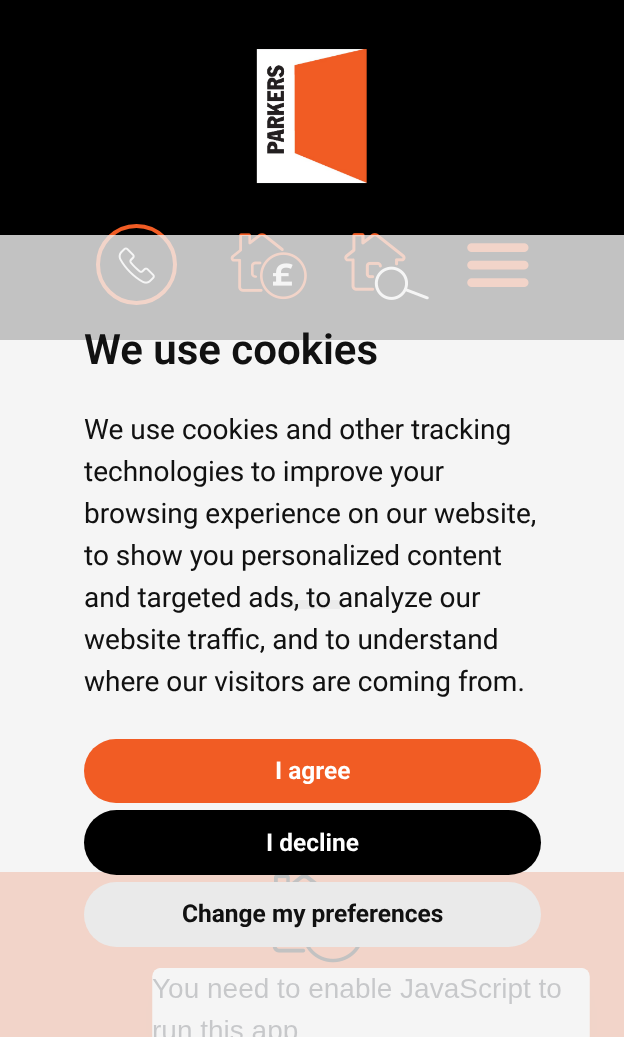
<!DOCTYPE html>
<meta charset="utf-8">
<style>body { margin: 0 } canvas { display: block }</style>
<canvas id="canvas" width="624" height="1037"></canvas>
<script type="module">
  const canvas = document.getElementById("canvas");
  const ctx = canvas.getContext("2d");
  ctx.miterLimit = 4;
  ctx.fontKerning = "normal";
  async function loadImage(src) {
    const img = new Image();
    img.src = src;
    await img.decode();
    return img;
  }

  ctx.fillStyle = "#ffffff";
  ctx.fillRect(0, 0, 624, 1037);
  ctx.fillStyle = "#000000";
  ctx.fillRect(0, 0, 624, 340);
  ctx.drawImage(await loadImage("img1.png"), 256, 49, 111, 135);
  ctx.beginPath();
  ctx.arc(136.5, 264.5, 38.5, 0, Math.PI * 2);
  ctx.strokeStyle = "#f15c24";
  ctx.lineWidth = 4;
  ctx.stroke();
  ctx.drawImage(await loadImage("img2.png"), 118, 247, 37, 37);
  ctx.drawImage(await loadImage("img3.png"), 230, 233, 77, 67);
  ctx.drawImage(await loadImage("img4.png"), 344, 233, 85, 67);
  ctx.drawImage(await loadImage("img5.png"), 467, 243, 62, 44);
  ctx.fillStyle = "#cccccc";
  ctx.fillRect(287, 600, 53, 9);
  ctx.fillStyle = "#f15c24";
  ctx.fillRect(0, 872, 624, 165);
  ctx.drawImage(await loadImage("img6.png"), 272, 875, 88, 88);
  ctx.fillStyle = "rgba(0, 0, 0, 0.1)";
  ctx.filter = "blur(13px)";
  ctx.beginPath();
  ctx.roundRect(158, 991, 427, 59, 4);
  ctx.fill();
  ctx.filter = "none";
  ctx.drawImage(await loadImage("img7.png"), 152, 968, 438, 69);
  ctx.fillStyle = "rgba(242, 242, 242, 0.8)";
  ctx.fillRect(0, 235, 624, 802);
  ctx.font = "600 42px Roboto";
  ctx.fillStyle = "#111111";
  ctx.fillText("We use cookies", 84, 364);
  ctx.font = "28px Roboto";
  ctx.fillText("We use cookies and other tracking", 84, 439);
  ctx.fillText("technologies to improve your", 84, 481);
  ctx.fillText("browsing experience on our website,", 84, 523);
  ctx.fillText("to show you personalized content", 84, 565);
  ctx.fillText("and targeted ads, to analyze our", 84, 607);
  ctx.fillText("website traffic, and to understand", 84, 649);
  ctx.fillText("where our visitors are coming from.", 84, 691);
  ctx.fillStyle = "#f15c24";
  ctx.beginPath();
  ctx.roundRect(84, 739, 457, 64, 32);
  ctx.fill();
  ctx.font = "bold 24.5px Roboto";
  ctx.fillStyle = "#ffffff";
  ctx.fillText("I agree", 275, 779);
  ctx.fillStyle = "#000000";
  ctx.beginPath();
  ctx.roundRect(84, 810, 457, 65, 32.5);
  ctx.fill();
  ctx.fillStyle = "#ffffff";
  ctx.fillText("I decline", 266, 851);
  ctx.fillStyle = "#eaeaea";
  ctx.beginPath();
  ctx.roundRect(84, 882, 457, 65, 32.5);
  ctx.fill();
  ctx.fillStyle = "#111111";
  ctx.fillText("Change my preferences", 182, 922);
</script>
